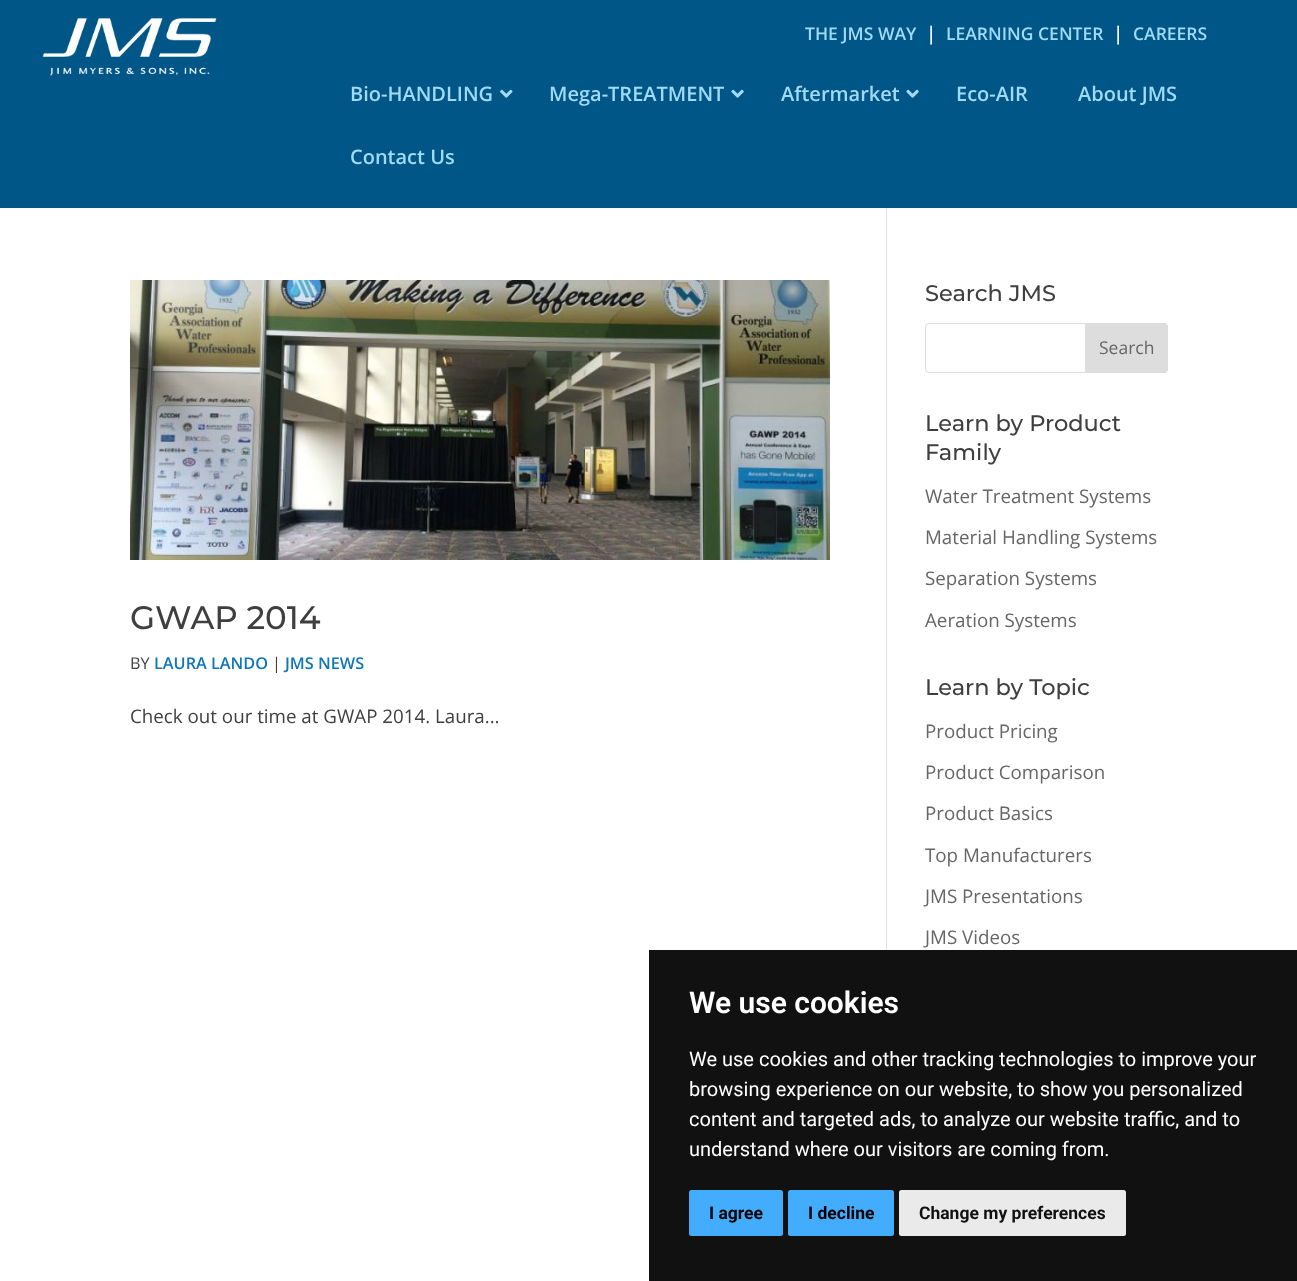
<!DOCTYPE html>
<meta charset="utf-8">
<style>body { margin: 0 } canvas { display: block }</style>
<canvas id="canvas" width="1297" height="1281"></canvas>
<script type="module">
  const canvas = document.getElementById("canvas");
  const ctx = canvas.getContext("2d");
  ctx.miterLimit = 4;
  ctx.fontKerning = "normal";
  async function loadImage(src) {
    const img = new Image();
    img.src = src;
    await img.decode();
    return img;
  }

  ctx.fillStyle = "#ffffff";
  ctx.fillRect(0, 0, 1297, 1281);
  ctx.fillStyle = "#005687";
  ctx.fillRect(0, 0, 1297, 208);
  ctx.drawImage(await loadImage("img1.png"), 42, 18, 175, 58);
  ctx.font = "600 17.5px Open Sans";
  ctx.fillStyle = "#a1daf4";
  ctx.fillText("THE JMS WAY", 805, 40);
  ctx.font = "600 18.75px Open Sans";
  ctx.fillStyle = "#ffffff";
  ctx.fillText("|", 926, 40);
  ctx.font = "600 17.5px Open Sans";
  ctx.fillStyle = "#a1daf4";
  ctx.fillText("LEARNING CENTER", 946, 40);
  ctx.font = "600 18.75px Open Sans";
  ctx.fillStyle = "#ffffff";
  ctx.fillText("|", 1113, 40);
  ctx.font = "600 17.5px Open Sans";
  ctx.fillStyle = "#a1daf4";
  ctx.fillText("CAREERS", 1133, 40);
  ctx.font = "600 20px Open Sans";
  ctx.fillText("Bio-HANDLING", 350, 101);
  ctx.drawImage(await loadImage("img2.png"), 500, 89, 13, 9);
  ctx.fillText("Mega-TREATMENT", 549, 101);
  ctx.drawImage(await loadImage("img3.png"), 731, 89, 13, 9);
  ctx.fillText("Aftermarket", 781, 101);
  ctx.drawImage(await loadImage("img3.png"), 906, 89, 13, 9);
  ctx.fillText("Eco-AIR", 956, 101);
  ctx.fillText("About JMS", 1078, 101);
  ctx.fillText("Contact Us", 350, 164);
  ctx.fillStyle = "#e2e2e2";
  ctx.fillRect(886, 208, 1, 742);
  ctx.drawImage(await loadImage("img4.png"), 130, 280, 700, 280);
  ctx.font = "500 32.5px Montserrat";
  ctx.fillStyle = "#3f3f3f";
  ctx.fillText("GWAP 2014", 130, 629);
  ctx.font = "16.25px Open Sans";
  ctx.fillText("BY", 130, 669);
  ctx.font = "600 16.25px Open Sans";
  ctx.fillStyle = "#0e76bb";
  ctx.fillText("LAURA LANDO", 154, 669);
  ctx.font = "16.25px Open Sans";
  ctx.fillStyle = "#3f3f3f";
  ctx.fillText("|", 272, 669);
  ctx.font = "600 16.25px Open Sans";
  ctx.fillStyle = "#0e76bb";
  ctx.fillText("JMS NEWS", 285, 669);
  ctx.font = "18.75px Open Sans";
  ctx.fillStyle = "#3f3f3f";
  ctx.fillText("Check out our time at GWAP 2014. Laura...", 130, 723);
  ctx.font = "500 22.5px Montserrat";
  ctx.fillText("Search JMS", 925, 301);
  ctx.beginPath();
  ctx.roundRect(925.5, 323.5, 242, 49, 3.5);
  ctx.strokeStyle = "#dddddd";
  ctx.stroke();
  ctx.fillStyle = "#dddddd";
  ctx.beginPath();
  ctx.roundRect(1085.5, 323.5, 82, 49, [0, 3.5, 3.5, 0]);
  ctx.fill();
  ctx.stroke();
  ctx.font = "17.5px Open Sans";
  ctx.fillStyle = "#666666";
  ctx.fillText("Search", 1099, 354);
  ctx.font = "500 22.5px Montserrat";
  ctx.fillStyle = "#3f3f3f";
  ctx.fillText("Learn by Product", 925, 431);
  ctx.fillText("Family", 925, 460);
  ctx.font = "18.75px Open Sans";
  ctx.fillStyle = "#666666";
  ctx.fillText("Water Treatment Systems", 925, 503);
  ctx.fillText("Material Handling Systems", 925, 544);
  ctx.fillText("Separation Systems", 925, 585);
  ctx.fillText("Aeration Systems", 925, 627);
  ctx.font = "500 22.5px Montserrat";
  ctx.fillStyle = "#3f3f3f";
  ctx.fillText("Learn by Topic", 925, 695);
  ctx.font = "18.75px Open Sans";
  ctx.fillStyle = "#666666";
  ctx.fillText("Product Pricing", 925, 738);
  ctx.fillText("Product Comparison", 925, 779);
  ctx.fillText("Product Basics", 925, 820);
  ctx.fillText("Top Manufacturers", 925, 862);
  ctx.fillText("JMS Presentations", 925, 903);
  ctx.fillText("JMS Videos", 925, 944);
  ctx.fillStyle = "#111111";
  ctx.fillRect(649, 950, 648, 331);
  ctx.font = "600 30px Roboto";
  ctx.fillStyle = "#ffffff";
  ctx.fillText("We use cookies", 689, 1013);
  ctx.font = "20px Roboto";
  ctx.fillText("We use cookies and other tracking technologies to improve your", 689, 1066);
  ctx.fillText("browsing experience on our website, to show you personalized", 689, 1096);
  ctx.fillText("content and targeted ads, to analyze our website traffic, and to", 689, 1126);
  ctx.fillText("understand where our visitors are coming from.", 689, 1156);
  ctx.fillStyle = "#43acfd";
  ctx.beginPath();
  ctx.roundRect(689, 1190, 94, 46, 2.5);
  ctx.fill();
  ctx.font = "bold 17.5px Roboto";
  ctx.fillStyle = "#000000";
  ctx.fillText("I agree", 709, 1219);
  ctx.fillStyle = "#43acfd";
  ctx.beginPath();
  ctx.roundRect(788, 1190, 106, 46, 2.5);
  ctx.fill();
  ctx.fillStyle = "#000000";
  ctx.fillText("I decline", 808, 1219);
  ctx.fillStyle = "#eaeaea";
  ctx.beginPath();
  ctx.roundRect(899, 1190, 227, 46, 2.5);
  ctx.fill();
  ctx.fillStyle = "#111111";
  ctx.fillText("Change my preferences", 919, 1219);
</script>
